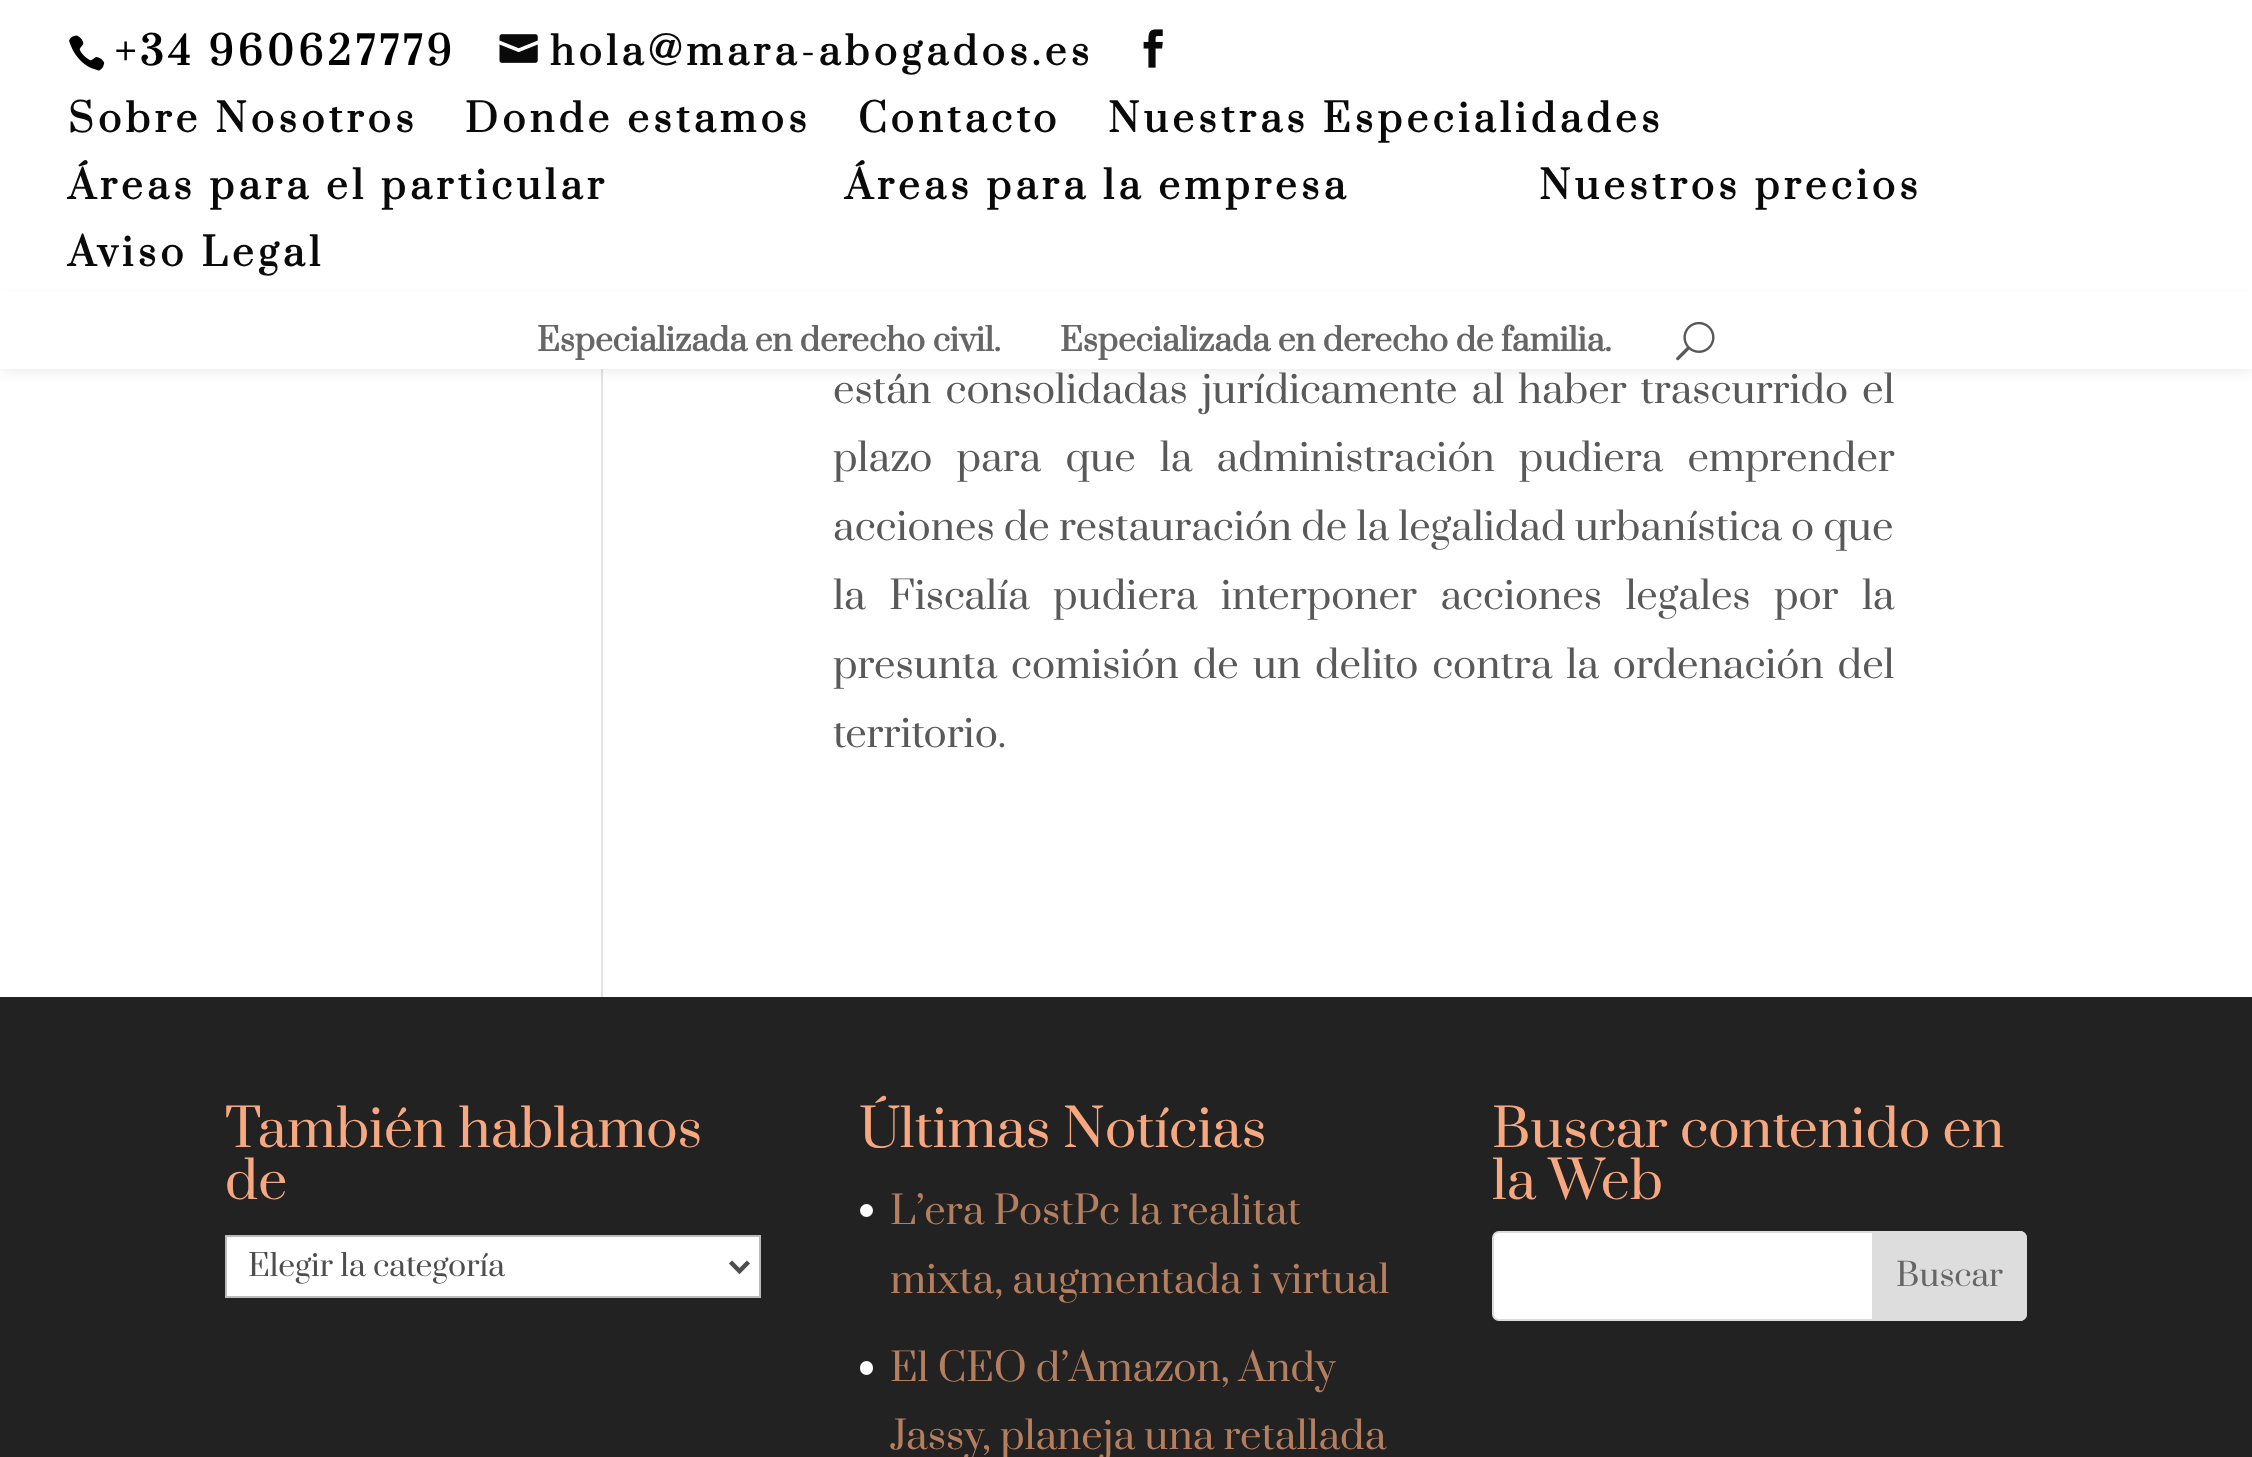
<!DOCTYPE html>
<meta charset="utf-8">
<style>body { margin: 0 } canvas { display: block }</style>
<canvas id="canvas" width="2252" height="1457"></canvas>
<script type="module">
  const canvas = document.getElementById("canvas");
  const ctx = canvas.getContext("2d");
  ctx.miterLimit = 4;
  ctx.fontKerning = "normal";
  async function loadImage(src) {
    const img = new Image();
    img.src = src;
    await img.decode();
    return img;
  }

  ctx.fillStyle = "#ffffff";
  ctx.fillRect(0, 0, 2252, 1457);
  ctx.drawImage(await loadImage("img1.png"), 69, 35, 36, 36);
  ctx.letterSpacing = "4.5px";
  ctx.font = "bold 38.25px Prata";
  ctx.fillStyle = "#000000";
  ctx.fillText("+34 960627779", 115, 65);
  ctx.drawImage(await loadImage("img2.png"), 499, 34, 39, 29);
  ctx.fillStyle = "#0a0a0a";
  ctx.fillText("hola@mara-abogados.es", 550, 65);
  ctx.drawImage(await loadImage("img3.png"), 1143, 29, 20, 39);
  ctx.fillText("Sobre Nosotros", 68, 132);
  ctx.fillText("Donde estamos", 465, 132);
  ctx.fillText("Contacto", 858, 132);
  ctx.fillText("Nuestras Especialidades", 1108, 132);
  ctx.fillText("Áreas para el particular", 68, 199);
  ctx.fillText("Áreas para la empresa", 845, 199);
  ctx.fillText("Nuestros precios", 1539, 199);
  ctx.fillText("Aviso Legal", 68, 266);
  ctx.fillStyle = "#e2e2e2";
  ctx.fillRect(601, 369, 2, 628);
  ctx.fillStyle = "rgba(0, 0, 0, 0.1)";
  ctx.filter = "blur(8px)";
  ctx.beginPath();
  ctx.rect(0, 302, 2252, 67);
  ctx.fill();
  ctx.filter = "none";
  ctx.fillStyle = "#ffffff";
  ctx.fillRect(0, 292, 2252, 77);
  ctx.letterSpacing = "0px";
  ctx.font = "bold 31.5px Prata";
  ctx.fillStyle = "#666666";
  ctx.fillText("Especializada en derecho civil.", 537, 351);
  ctx.fillText("Especializada en derecho de familia.", 1060, 351);
  ctx.drawImage(await loadImage("img4.png"), 1676, 321, 39, 40);
  ctx.wordSpacing = "4.75px";
  ctx.font = "38.25px Prata";
  ctx.fillStyle = "#595959";
  ctx.fillText("están consolidadas jurídicamente al haber trascurrido el", 833, 403);
  ctx.wordSpacing = "15px";
  ctx.fillText("plazo para que la administración pudiera emprender", 833, 471);
  ctx.wordSpacing = "0px";
  ctx.fillText("acciones de restauración de la legalidad urbanística o que", 833, 540);
  ctx.wordSpacing = "14.25px";
  ctx.fillText("la Fiscalía pudiera interponer acciones legales por la", 833, 609);
  ctx.wordSpacing = "4.75px";
  ctx.fillText("presunta comisión de un delito contra la ordenación del", 833, 678);
  ctx.wordSpacing = "0px";
  ctx.fillText("territorio.", 833, 747);
  ctx.fillStyle = "#222222";
  ctx.fillRect(0, 997, 2252, 460);
  ctx.font = "51.75px Prata";
  ctx.fillStyle = "#f7a880";
  ctx.fillText("También hablamos", 225, 1147);
  ctx.fillText("de", 225, 1199);
  ctx.fillStyle = "#ffffff";
  ctx.beginPath();
  ctx.rect(226, 1236, 534, 61);
  ctx.fill();
  ctx.strokeStyle = "#bbbbbb";
  ctx.lineWidth = 2;
  ctx.stroke();
  ctx.beginPath();
  ctx.moveTo(730.5, 1262);
  ctx.lineTo(739.5, 1271);
  ctx.lineTo(748.5, 1262);
  ctx.strokeStyle = "#4e4e4e";
  ctx.lineWidth = 4.5;
  ctx.stroke();
  ctx.font = "30px Prata";
  ctx.fillStyle = "#4e4e4e";
  ctx.fillText("Elegir la categoría", 248, 1276);
  ctx.font = "51.75px Prata";
  ctx.fillStyle = "#f7a880";
  ctx.fillText("Últimas Notícias", 859, 1147);
  ctx.fillStyle = "#ffffff";
  ctx.beginPath();
  ctx.arc(866.5, 1210.5, 6.5, 0, Math.PI * 2);
  ctx.fill();
  ctx.font = "38.25px Prata";
  ctx.fillStyle = "#b57e5e";
  ctx.fillText("L’era PostPc la realitat", 890, 1224);
  ctx.fillText("mixta, augmentada i virtual", 890, 1293);
  ctx.fillStyle = "#ffffff";
  ctx.beginPath();
  ctx.roundRect(860, 1361, 13, 14, 6.5);
  ctx.fill();
  ctx.fillStyle = "#b57e5e";
  ctx.fillText("El CEO d’Amazon, Andy", 890, 1381);
  ctx.fillText("Jassy, planeja una retallada", 890, 1449);
  ctx.font = "51.75px Prata";
  ctx.fillStyle = "#f7a880";
  ctx.fillText("Buscar contenido en", 1492, 1147);
  ctx.fillText("la Web", 1492, 1199);
  ctx.fillStyle = "#ffffff";
  ctx.beginPath();
  ctx.roundRect(1493, 1232, 533, 88, 6);
  ctx.fill();
  ctx.strokeStyle = "#dddddd";
  ctx.lineWidth = 2;
  ctx.stroke();
  ctx.fillStyle = "#dddddd";
  ctx.beginPath();
  ctx.roundRect(1873, 1232, 153, 88, [0, 6, 6, 0]);
  ctx.fill();
  ctx.stroke();
  ctx.font = "31.5px Prata";
  ctx.fillStyle = "#666666";
  ctx.fillText("Buscar", 1896, 1286);
</script>
